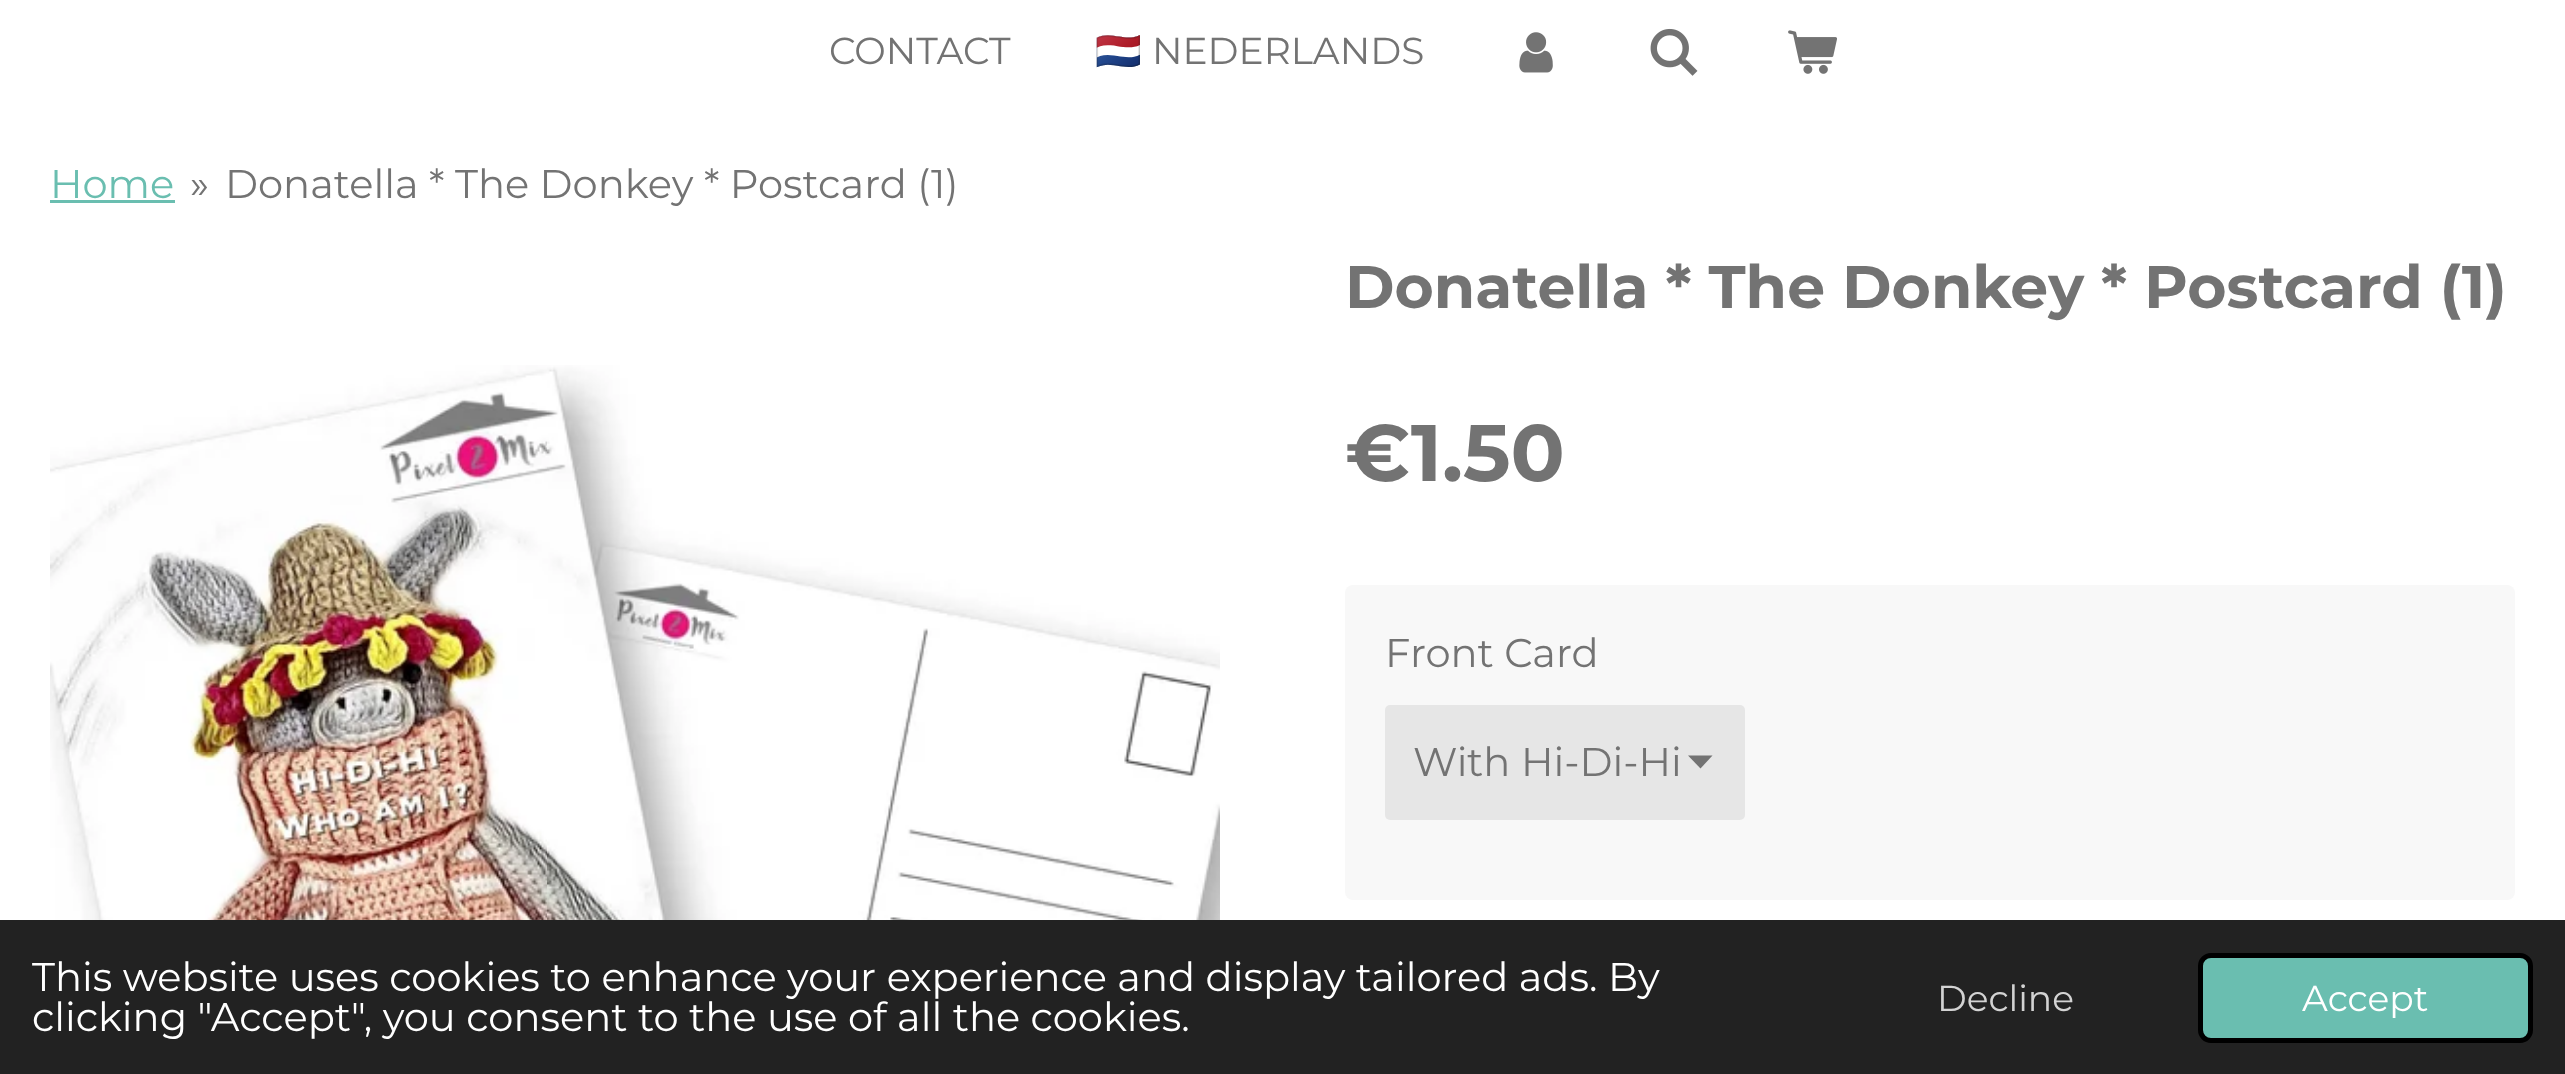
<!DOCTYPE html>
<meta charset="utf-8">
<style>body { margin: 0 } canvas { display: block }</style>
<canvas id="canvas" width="2565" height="1074"></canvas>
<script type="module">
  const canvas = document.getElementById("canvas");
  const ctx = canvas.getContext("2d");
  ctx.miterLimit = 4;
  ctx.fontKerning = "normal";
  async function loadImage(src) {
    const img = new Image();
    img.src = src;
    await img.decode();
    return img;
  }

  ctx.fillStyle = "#ffffff";
  ctx.fillRect(0, 0, 2565, 1074);
  ctx.font = "37.5px Montserrat";
  ctx.fillStyle = "#737373";
  ctx.fillText("CONTACT", 829, 64);
  ctx.font = "37.5px Noto Color Emoji";
  ctx.fillText("🇳🇱", 1095, 64);
  ctx.font = "37.5px Montserrat";
  ctx.fillText("NEDERLANDS", 1152, 64);
  ctx.drawImage(await loadImage("img1.png"), 1519, 32, 34, 41);
  ctx.drawImage(await loadImage("img2.png"), 1650, 28, 48, 48);
  ctx.drawImage(await loadImage("img3.png"), 1788, 30, 49, 44);
  ctx.font = "40px Montserrat";
  ctx.fillStyle = "#6abeb0";
  ctx.fillText("Home", 50, 198);
  ctx.fillRect(50, 200, 125, 3);
  ctx.fillStyle = "#737373";
  ctx.fillText("»", 190, 198);
  ctx.fillText("Donatella * The Donkey * Postcard (1)", 225, 198);
  ctx.font = "bold 60px Montserrat";
  ctx.fillText("Donatella * The Donkey * Postcard (1)", 1345, 308);
  ctx.drawImage(await loadImage("img4.png"), 50, 365, 1170, 555);
  ctx.font = "bold 80px Montserrat";
  ctx.fillText("€1.50", 1345, 481);
  ctx.fillStyle = "#f8f8f8";
  ctx.beginPath();
  ctx.roundRect(1345, 585, 1170, 315, 8);
  ctx.fill();
  ctx.font = "40px Montserrat";
  ctx.fillStyle = "#737373";
  ctx.fillText("Front Card", 1385, 667);
  ctx.fillStyle = "#e6e6e6";
  ctx.beginPath();
  ctx.roundRect(1385, 705, 360, 115, 5);
  ctx.fill();
  ctx.fillStyle = "#737373";
  ctx.beginPath();
  ctx.moveTo(1700.5, 768.5);
  ctx.lineTo(1688, 755.5);
  ctx.lineTo(1712.5, 755.5);
  ctx.closePath();
  ctx.fill();
  ctx.fillText("With Hi-Di-Hi", 1413, 776);
  ctx.fillStyle = "#222222";
  ctx.fillRect(0, 920, 2565, 154);
  ctx.fillStyle = "#ffffff";
  ctx.fillText("This website uses cookies to enhance your experience and display tailored ads. By", 32, 991);
  ctx.fillText("clicking \"Accept\", you consent to the use of all the cookies.", 32, 1031);
  ctx.font = "36px Montserrat";
  ctx.fillStyle = "#d3d3d3";
  ctx.fillText("Decline", 1937, 1011);
  ctx.fillStyle = "#6abeb0";
  ctx.beginPath();
  ctx.roundRect(2200.5, 955.5, 330, 85, 10.5);
  ctx.fill();
  ctx.strokeStyle = "#000000";
  ctx.lineWidth = 5;
  ctx.stroke();
  ctx.fillStyle = "#ffffff";
  ctx.fillText("Accept", 2302, 1011);
</script>
